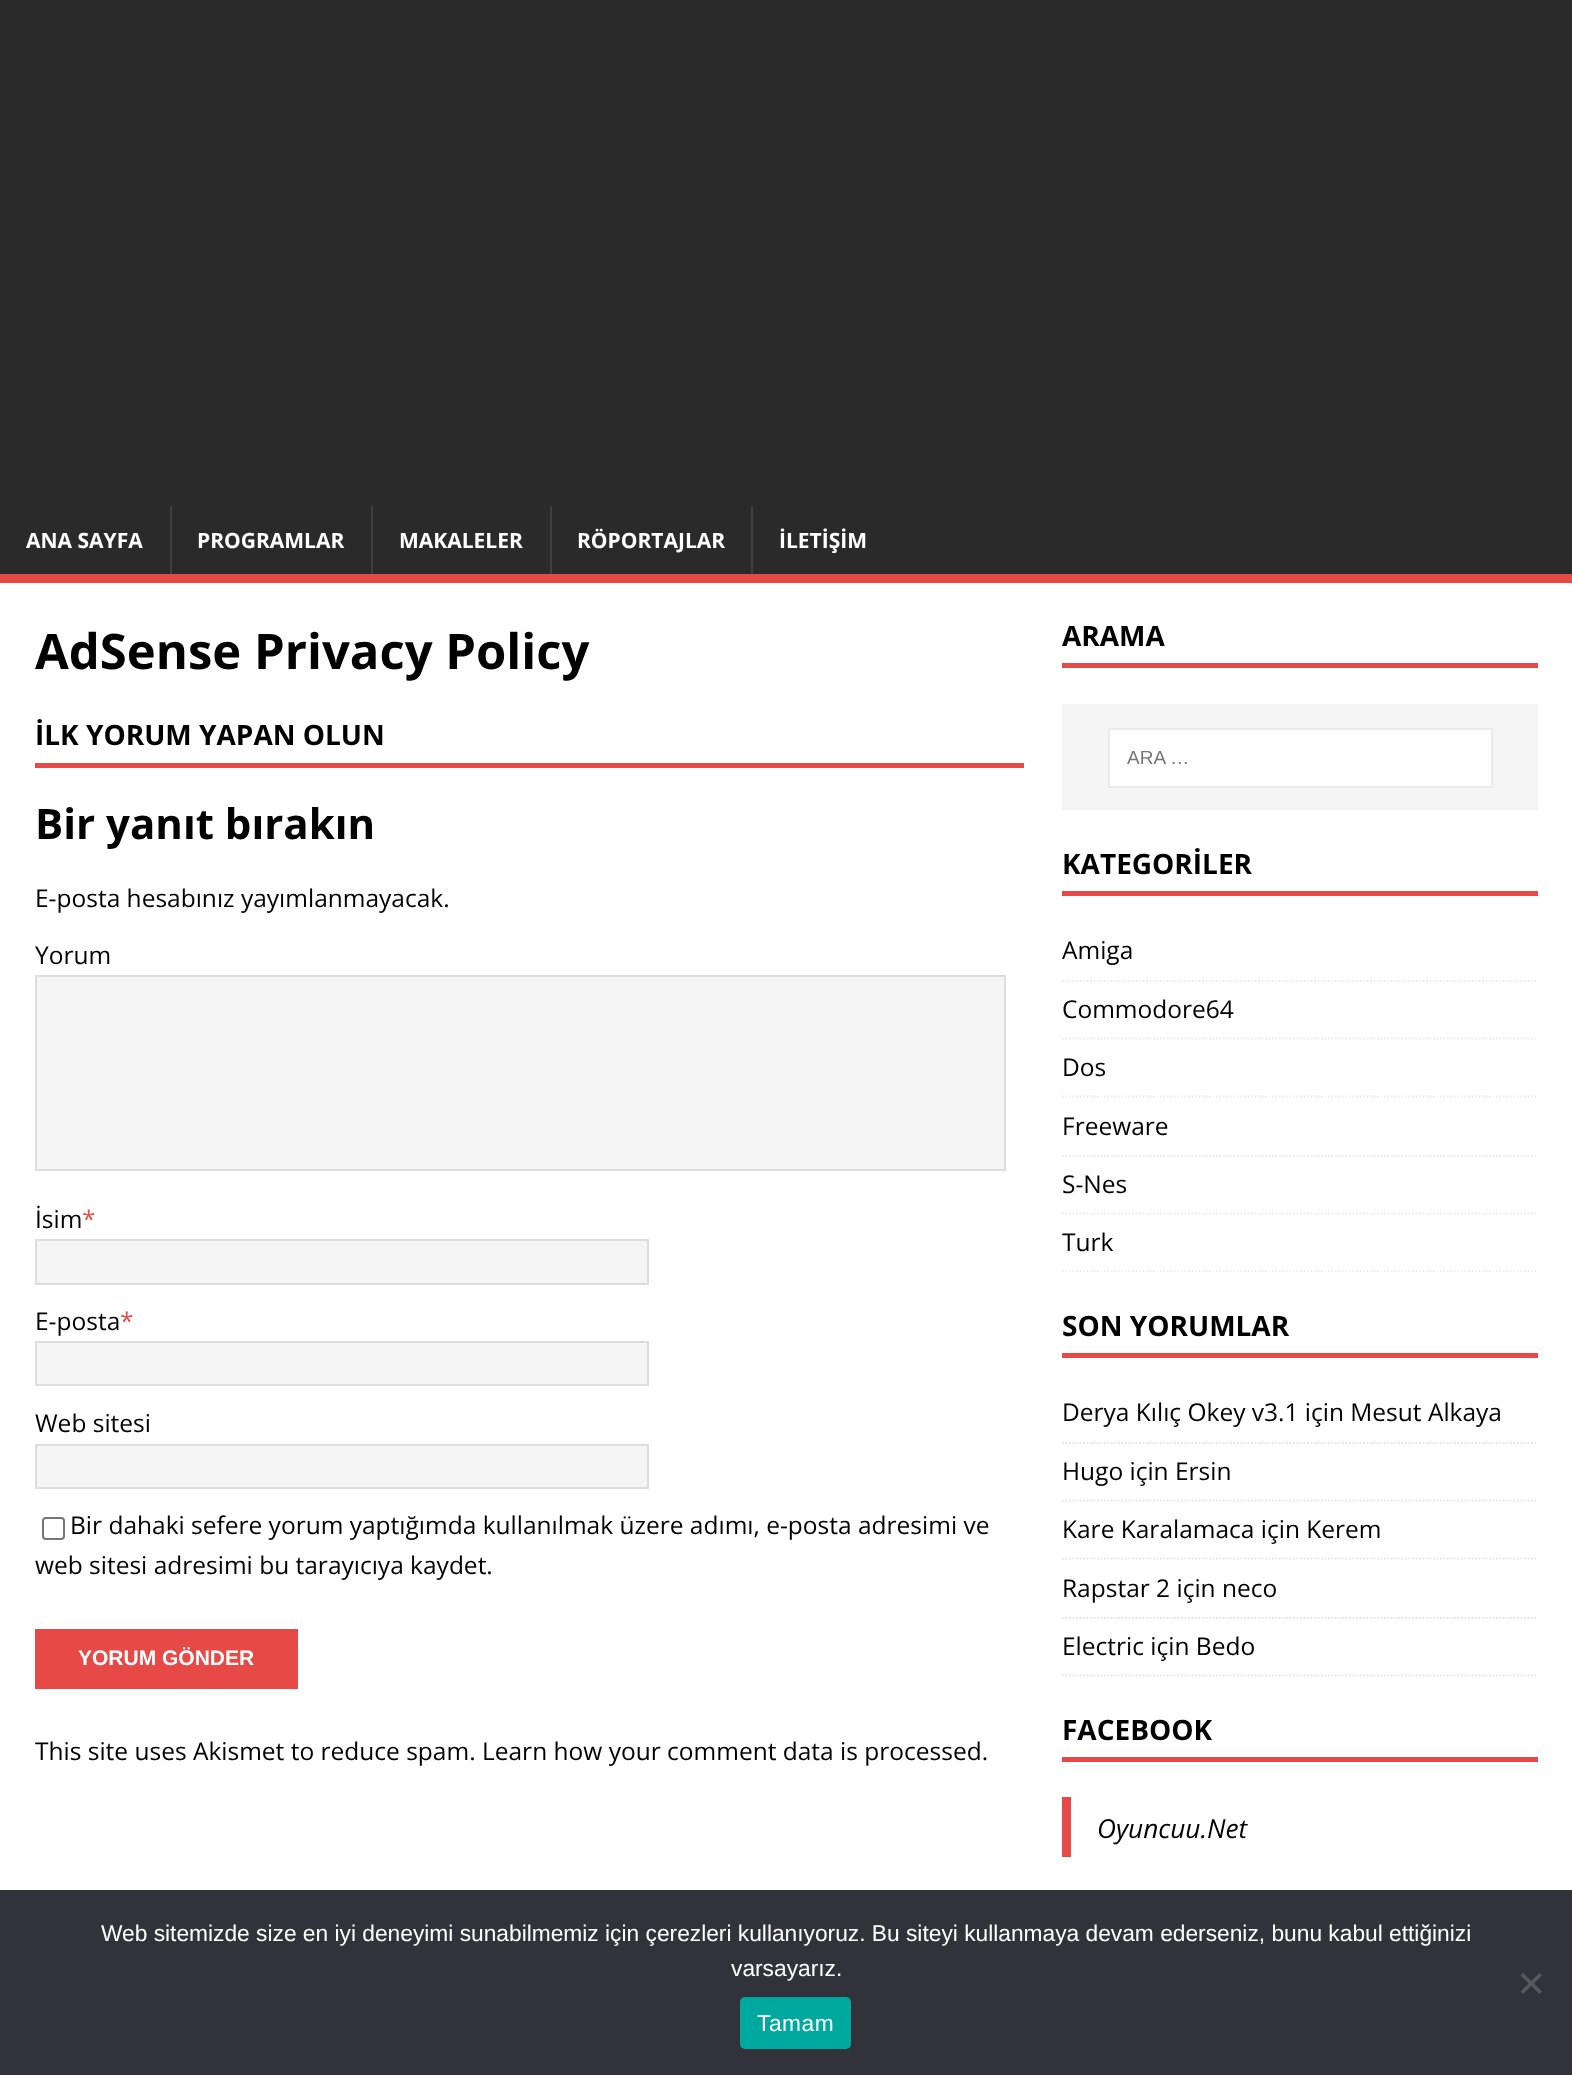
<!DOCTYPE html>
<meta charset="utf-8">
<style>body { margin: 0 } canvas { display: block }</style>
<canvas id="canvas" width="1572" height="2075"></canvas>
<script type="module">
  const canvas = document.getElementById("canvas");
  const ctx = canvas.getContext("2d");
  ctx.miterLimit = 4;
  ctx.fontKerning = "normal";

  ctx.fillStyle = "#2a2a2a";
  ctx.fillRect(0, 0, 1572, 2075);
  ctx.fillStyle = "#e64946";
  ctx.fillRect(0, 574, 1572, 9);
  ctx.font = "bold 21px Open Sans";
  ctx.fillStyle = "#ffffff";
  ctx.fillText("ANA SAYFA", 26, 548);
  ctx.fillStyle = "#3f3f3f";
  ctx.fillRect(170, 506, 2, 68);
  ctx.fillStyle = "#ffffff";
  ctx.fillText("PROGRAMLAR", 197, 548);
  ctx.fillStyle = "#3f3f3f";
  ctx.fillRect(371, 506, 2, 68);
  ctx.fillStyle = "#ffffff";
  ctx.fillText("MAKALELER", 399, 548);
  ctx.fillStyle = "#3f3f3f";
  ctx.fillRect(550, 506, 2, 68);
  ctx.fillStyle = "#ffffff";
  ctx.fillText("RÖPORTAJLAR", 577, 548);
  ctx.fillStyle = "#3f3f3f";
  ctx.fillRect(751, 506, 2, 68);
  ctx.fillStyle = "#ffffff";
  ctx.fillText("İLETİŞİM", 779, 548);
  ctx.fillRect(0, 583, 1572, 1307);
  ctx.font = "bold 49px Open Sans";
  ctx.fillStyle = "#000000";
  ctx.fillText("AdSense Privacy Policy", 35, 669);
  ctx.fillStyle = "#e64946";
  ctx.fillRect(35, 763, 989, 5);
  ctx.font = "bold 28px Open Sans";
  ctx.fillStyle = "#000000";
  ctx.fillText("İLK YORUM YAPAN OLUN", 35, 745);
  ctx.font = "bold 42px Open Sans";
  ctx.fillText("Bir yanıt bırakın", 35, 839);
  ctx.font = "24.5px Open Sans";
  ctx.fillText("E-posta hesabınız yayımlanmayacak.", 35, 907);
  ctx.fillText("Yorum", 35, 964);
  ctx.fillStyle = "#f5f5f5";
  ctx.beginPath();
  ctx.rect(36, 976, 969, 194);
  ctx.fill();
  ctx.strokeStyle = "#dddddd";
  ctx.lineWidth = 2;
  ctx.stroke();
  ctx.fillStyle = "#000000";
  ctx.fillText("İsim", 35, 1228);
  ctx.fillStyle = "#e64946";
  ctx.fillText("*", 82, 1228);
  ctx.fillStyle = "#f5f5f5";
  ctx.beginPath();
  ctx.rect(36, 1240, 612, 44);
  ctx.fill();
  ctx.stroke();
  ctx.fillStyle = "#000000";
  ctx.fillText("E-posta", 35, 1330);
  ctx.fillStyle = "#e64946";
  ctx.fillText("*", 120, 1330);
  ctx.fillStyle = "#f5f5f5";
  ctx.beginPath();
  ctx.rect(36, 1342, 612, 43);
  ctx.fill();
  ctx.stroke();
  ctx.fillStyle = "#000000";
  ctx.fillText("Web sitesi", 35, 1432);
  ctx.fillStyle = "#f5f5f5";
  ctx.beginPath();
  ctx.rect(36, 1445, 612, 43);
  ctx.fill();
  ctx.stroke();
  ctx.beginPath();
  ctx.roundRect(43, 1518, 21, 21, 3);
  ctx.strokeStyle = "#767676";
  ctx.stroke();
  ctx.fillStyle = "#000000";
  ctx.fillText("Bir dahaki sefere yorum yaptığımda kullanılmak üzere adımı, e-posta adresimi ve", 70, 1534);
  ctx.fillText("web sitesi adresimi bu tarayıcıya kaydet.", 35, 1574);
  ctx.fillStyle = "#e64946";
  ctx.fillRect(35, 1629, 263, 60);
  ctx.font = "bold 21px Liberation Sans";
  ctx.fillStyle = "#ffffff";
  ctx.fillText("YORUM GÖNDER", 78, 1665);
  ctx.font = "24.5px Open Sans";
  ctx.fillStyle = "#000000";
  ctx.fillText("This site uses Akismet to reduce spam. Learn how your comment data is processed.", 35, 1760);
  ctx.fillStyle = "#e64946";
  ctx.fillRect(1062, 663, 476, 5);
  ctx.font = "bold 28px Open Sans";
  ctx.fillStyle = "#000000";
  ctx.fillText("ARAMA", 1062, 646);
  ctx.fillStyle = "#f5f5f5";
  ctx.fillRect(1062, 704, 476, 106);
  ctx.fillStyle = "#ffffff";
  ctx.beginPath();
  ctx.rect(1109, 729, 383, 58);
  ctx.fill();
  ctx.strokeStyle = "#ebebeb";
  ctx.stroke();
  ctx.font = "19px Liberation Sans";
  ctx.fillStyle = "#757575";
  ctx.fillText("ARA …", 1127, 764);
  ctx.fillStyle = "#e64946";
  ctx.fillRect(1062, 891, 476, 5);
  ctx.font = "bold 28px Open Sans";
  ctx.fillStyle = "#000000";
  ctx.fillText("KATEGORİLER", 1062, 874);
  ctx.beginPath();
  ctx.moveTo(1062, 981);
  ctx.lineTo(1538, 981);
  ctx.lineWidth = 1.8;
  ctx.setLineDash([1.75, 1.75]);
  ctx.stroke();
  ctx.font = "24.5px Open Sans";
  ctx.fillText("Amiga", 1062, 959);
  ctx.beginPath();
  ctx.moveTo(1062, 1038.5);
  ctx.lineTo(1538, 1038.5);
  ctx.stroke();
  ctx.fillText("Commodore64", 1062, 1018);
  ctx.beginPath();
  ctx.moveTo(1062, 1096.5);
  ctx.lineTo(1538, 1096.5);
  ctx.stroke();
  ctx.fillText("Dos", 1062, 1076);
  ctx.beginPath();
  ctx.moveTo(1062, 1156);
  ctx.lineTo(1538, 1156);
  ctx.stroke();
  ctx.fillText("Freeware", 1062, 1135);
  ctx.beginPath();
  ctx.moveTo(1062, 1213.5);
  ctx.lineTo(1538, 1213.5);
  ctx.stroke();
  ctx.fillText("S-Nes", 1062, 1193);
  ctx.save();
  ctx.beginPath();
  ctx.rect(1062, 845, 476, 427);
  ctx.clip();
  ctx.beginPath();
  ctx.moveTo(1062, 1271.5);
  ctx.lineTo(1538, 1271.5);
  ctx.stroke();
  ctx.restore();
  ctx.fillText("Turk", 1062, 1251);
  ctx.fillStyle = "#e64946";
  ctx.fillRect(1062, 1353, 476, 5);
  ctx.font = "bold 28px Open Sans";
  ctx.fillStyle = "#000000";
  ctx.fillText("SON YORUMLAR", 1062, 1336);
  ctx.beginPath();
  ctx.moveTo(1062, 1443);
  ctx.lineTo(1538, 1443);
  ctx.strokeStyle = "#e5e5e5";
  ctx.stroke();
  ctx.font = "24.5px Open Sans";
  ctx.fillText("Derya Kılıç Okey v3.1 için Mesut Alkaya", 1062, 1421);
  ctx.beginPath();
  ctx.moveTo(1062, 1500.5);
  ctx.lineTo(1538, 1500.5);
  ctx.stroke();
  ctx.fillText("Hugo için Ersin", 1062, 1480);
  ctx.beginPath();
  ctx.moveTo(1062, 1558.5);
  ctx.lineTo(1538, 1558.5);
  ctx.stroke();
  ctx.fillText("Kare Karalamaca için Kerem", 1062, 1538);
  ctx.beginPath();
  ctx.moveTo(1062, 1618);
  ctx.lineTo(1538, 1618);
  ctx.stroke();
  ctx.fillText("Rapstar 2 için neco", 1062, 1597);
  ctx.beginPath();
  ctx.moveTo(1062, 1675.5);
  ctx.lineTo(1538, 1675.5);
  ctx.stroke();
  ctx.fillText("Electric için Bedo", 1062, 1655);
  ctx.fillStyle = "#e64946";
  ctx.fillRect(1062, 1757, 476, 5);
  ctx.font = "bold 28px Open Sans";
  ctx.fillStyle = "#000000";
  ctx.fillText("FACEBOOK", 1062, 1740);
  ctx.fillStyle = "#e64946";
  ctx.fillRect(1062, 1797, 9, 60);
  ctx.font = "italic 26.25px Open Sans";
  ctx.fillStyle = "#000000";
  ctx.fillText("Oyuncuu.Net", 1097, 1838);
  ctx.fillStyle = "#32323a";
  ctx.fillRect(0, 1890, 1572, 185);
  ctx.font = "22.75px Liberation Sans";
  ctx.fillStyle = "#ffffff";
  ctx.fillText("Web sitemizde size en iyi deneyimi sunabilmemiz için çerezleri kullanıyoruz. Bu siteyi kullanmaya devam ederseniz, bunu kabul ettiğinizi", 101, 1941);
  ctx.fillText("varsayarız.", 731, 1976);
  ctx.fillStyle = "#59595d";
  ctx.beginPath();
  ctx.moveTo(1539.5, 1973);
  ctx.lineTo(1542, 1975.5);
  ctx.lineTo(1523, 1994);
  ctx.lineTo(1520.5, 1991.5);
  ctx.closePath();
  ctx.fill();
  ctx.beginPath();
  ctx.moveTo(1520.5, 1975.5);
  ctx.lineTo(1523, 1973);
  ctx.lineTo(1542, 1991.5);
  ctx.lineTo(1539.5, 1994);
  ctx.closePath();
  ctx.fill();
  ctx.fillStyle = "#00a99d";
  ctx.beginPath();
  ctx.roundRect(740, 1997, 111, 52, 5);
  ctx.fill();
  ctx.letterSpacing = "0.5px";
  ctx.fillStyle = "#ffffff";
  ctx.fillText("Tamam", 757, 2031);
</script>
